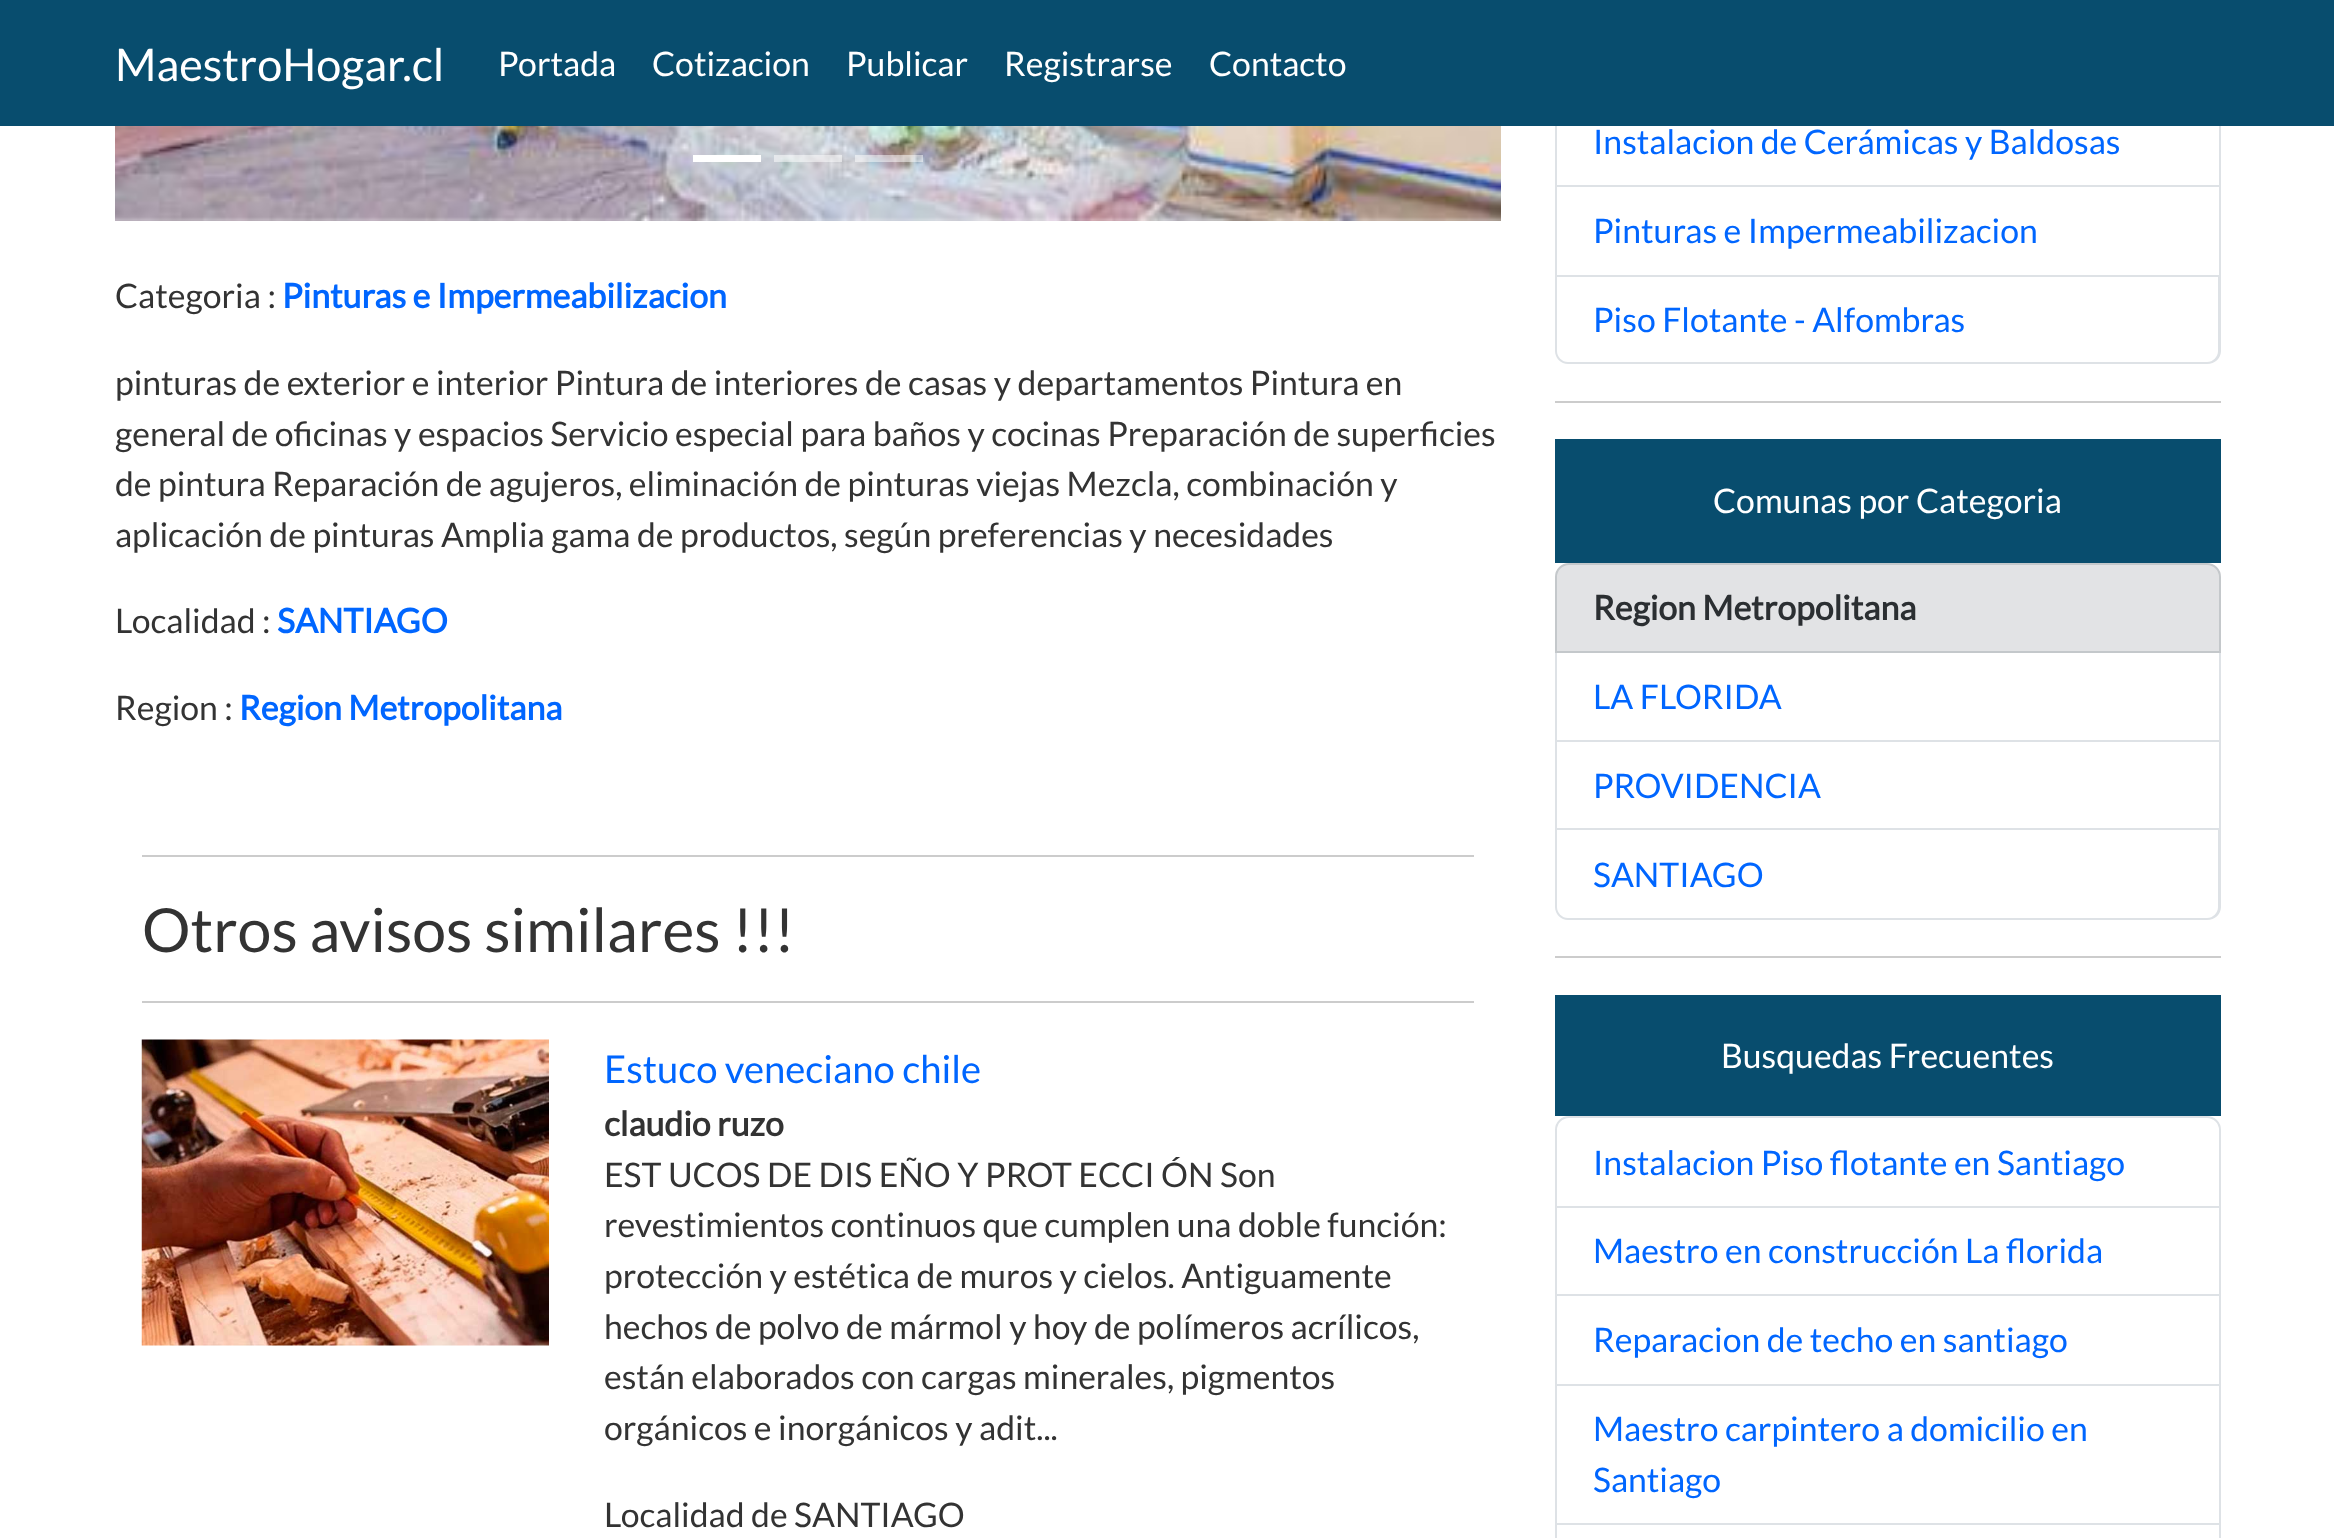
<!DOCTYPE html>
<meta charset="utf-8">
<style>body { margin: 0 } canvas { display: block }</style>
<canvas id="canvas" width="2334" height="1538"></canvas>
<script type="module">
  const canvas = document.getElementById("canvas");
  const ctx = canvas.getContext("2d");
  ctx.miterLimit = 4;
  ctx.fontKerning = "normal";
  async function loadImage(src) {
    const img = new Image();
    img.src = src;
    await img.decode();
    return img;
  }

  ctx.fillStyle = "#ffffff";
  ctx.fillRect(0, 0, 2334, 1538);
  ctx.fillStyle = "#084d6e";
  ctx.fillRect(0, 0, 2334, 126);
  ctx.font = "45px Lato";
  ctx.fillStyle = "#ffffff";
  ctx.fillText("MaestroHogar.cl", 115, 81);
  ctx.font = "33.75px Lato";
  ctx.fillText("Portada", 498, 76);
  ctx.fillText("Cotizacion", 652, 76);
  ctx.fillText("Publicar", 846, 76);
  ctx.fillText("Registrarse", 1004, 76);
  ctx.fillText("Contacto", 1209, 76);
  ctx.drawImage(await loadImage("img1.png"), 115, 126, 1386, 95);
  ctx.fillRect(693, 155, 68, 7);
  ctx.fillStyle = "rgba(255, 255, 255, 0.5)";
  ctx.fillRect(774, 155, 68, 7);
  ctx.fillRect(855, 155, 68, 7);
  ctx.fillStyle = "#333333";
  ctx.fillText("Categoria :", 115, 308);
  ctx.font = "bold 33.75px Lato";
  ctx.fillStyle = "#0066ff";
  ctx.fillText("Pinturas e Impermeabilizacion", 282, 308);
  ctx.font = "33.75px Lato";
  ctx.fillStyle = "#333333";
  ctx.fillText("pinturas de exterior e interior Pintura de interiores de casas y departamentos Pintura en", 115, 395);
  ctx.fillText("general de oficinas y espacios Servicio especial para baños y cocinas Preparación de superficies", 115, 446);
  ctx.fillText("de pintura Reparación de agujeros, eliminación de pinturas viejas Mezcla, combinación y", 115, 496);
  ctx.fillText("aplicación de pinturas Amplia gama de productos, según preferencias y necesidades", 115, 547);
  ctx.fillText("Localidad :", 115, 633);
  ctx.font = "bold 33.75px Lato";
  ctx.fillStyle = "#0066ff";
  ctx.fillText("SANTIAGO", 277, 633);
  ctx.font = "33.75px Lato";
  ctx.fillStyle = "#333333";
  ctx.fillText("Region :", 115, 720);
  ctx.font = "bold 33.75px Lato";
  ctx.fillStyle = "#0066ff";
  ctx.fillText("Region Metropolitana", 239, 720);
  ctx.fillStyle = "#cccccc";
  ctx.fillRect(142, 855, 1332, 2);
  ctx.font = "60.75px Lato";
  ctx.fillStyle = "#333333";
  ctx.fillText("Otros avisos similares !!!", 142, 952);
  ctx.fillStyle = "#cccccc";
  ctx.fillRect(142, 1001, 1332, 2);
  ctx.drawImage(await loadImage("img2.png"), 141, 1039, 408, 307);
  ctx.font = "38.25px Lato";
  ctx.fillStyle = "#0066ff";
  ctx.fillText("Estuco veneciano chile", 604, 1083);
  ctx.font = "bold 33.75px Lato";
  ctx.fillStyle = "#333333";
  ctx.fillText("claudio ruzo", 604, 1136);
  ctx.font = "33.75px Lato";
  ctx.fillText("EST UCOS DE DIS EÑO Y PROT ECCI ÓN Son", 604, 1187);
  ctx.fillText("revestimientos continuos que cumplen una doble función:", 604, 1237);
  ctx.fillText("protección y estética de muros y cielos. Antiguamente", 604, 1288);
  ctx.fillText("hechos de polvo de mármol y hoy de polímeros acrílicos,", 604, 1339);
  ctx.fillText("están elaborados con cargas minerales, pigmentos", 604, 1389);
  ctx.fillText("orgánicos e inorgánicos y adit...", 604, 1440);
  ctx.fillText("Localidad de SANTIAGO", 604, 1527);
  ctx.fillStyle = "#dee2e6";
  ctx.fillRect(2219, 126, 2, 151);
  ctx.fillRect(1555, 185, 666, 2);
  ctx.fillRect(1555, 126, 2, 61);
  ctx.fillStyle = "#0066ff";
  ctx.fillText("Instalacion de Cerámicas y Baldosas", 1593, 154);
  ctx.fillStyle = "#dee2e6";
  ctx.fillRect(1555, 275, 666, 2);
  ctx.fillRect(1555, 187, 2, 90);
  ctx.fillStyle = "#0066ff";
  ctx.fillText("Pinturas e Impermeabilizacion", 1593, 243);
  ctx.fillStyle = "#dee2e6";
  ctx.beginPath();
  ctx.moveTo(1555, 277);
  ctx.lineTo(2221, 277);
  ctx.lineTo(2221, 351);
  ctx.bezierCurveTo(2221, 358, 2215, 364, 2207, 364);
  ctx.lineTo(1568, 364);
  ctx.bezierCurveTo(1561, 364, 1555, 358, 1555, 351);
  ctx.closePath();
  ctx.moveTo(1557, 277);
  ctx.lineTo(2218, 277);
  ctx.lineTo(2218, 351);
  ctx.bezierCurveTo(2218, 357, 2213, 362, 2207, 362);
  ctx.lineTo(1568, 362);
  ctx.bezierCurveTo(1562, 362, 1557, 357, 1557, 351);
  ctx.closePath();
  ctx.fill("evenodd");
  ctx.fillStyle = "#0066ff";
  ctx.fillText("Piso Flotante - Alfombras", 1593, 332);
  ctx.fillStyle = "#cccccc";
  ctx.fillRect(1555, 401, 666, 2);
  ctx.fillStyle = "#084d6e";
  ctx.fillRect(1555, 439, 666, 124);
  ctx.fillStyle = "#ffffff";
  ctx.fillText("Comunas por Categoria", 1713, 513);
  ctx.fillStyle = "#e2e3e5";
  ctx.beginPath();
  ctx.roundRect(1556, 564, 664, 88, [13, 13, 0, 0]);
  ctx.fill();
  ctx.strokeStyle = "#c4c8cb";
  ctx.lineWidth = 2;
  ctx.stroke();
  ctx.font = "bold 33.75px Lato";
  ctx.fillStyle = "#2b2f32";
  ctx.fillText("Region Metropolitana", 1593, 620);
  ctx.fillStyle = "#dee2e6";
  ctx.fillRect(2219, 653, 2, 177);
  ctx.fillRect(1555, 740, 666, 2);
  ctx.fillRect(1555, 653, 2, 90);
  ctx.font = "33.75px Lato";
  ctx.fillStyle = "#0066ff";
  ctx.fillText("LA FLORIDA", 1593, 709);
  ctx.fillStyle = "#dee2e6";
  ctx.fillRect(1555, 828, 666, 2);
  ctx.fillRect(1555, 743, 2, 87);
  ctx.fillStyle = "#0066ff";
  ctx.fillText("PROVIDENCIA", 1593, 798);
  ctx.fillStyle = "#dee2e6";
  ctx.beginPath();
  ctx.moveTo(1555, 830);
  ctx.lineTo(2221, 830);
  ctx.lineTo(2221, 907);
  ctx.bezierCurveTo(2221, 914, 2215, 920, 2207, 920);
  ctx.lineTo(1568, 920);
  ctx.bezierCurveTo(1561, 920, 1555, 914, 1555, 907);
  ctx.closePath();
  ctx.moveTo(1557, 830);
  ctx.lineTo(2218, 830);
  ctx.lineTo(2218, 907);
  ctx.bezierCurveTo(2218, 913, 2213, 918, 2207, 918);
  ctx.lineTo(1568, 918);
  ctx.bezierCurveTo(1562, 918, 1557, 913, 1557, 907);
  ctx.closePath();
  ctx.fill("evenodd");
  ctx.fillStyle = "#0066ff";
  ctx.fillText("SANTIAGO", 1593, 887);
  ctx.fillStyle = "#cccccc";
  ctx.fillRect(1555, 956, 666, 2);
  ctx.fillStyle = "#084d6e";
  ctx.fillRect(1555, 995, 666, 121);
  ctx.fillStyle = "#ffffff";
  ctx.fillText("Busquedas Frecuentes", 1721, 1068);
  ctx.beginPath();
  ctx.roundRect(1556, 1117, 664, 90, [13, 13, 0, 0]);
  ctx.strokeStyle = "#dee2e6";
  ctx.stroke();
  ctx.fillStyle = "#0066ff";
  ctx.fillText("Instalacion Piso flotante en Santiago", 1593, 1175);
  ctx.fillStyle = "#dee2e6";
  ctx.fillRect(2219, 1208, 2, 330);
  ctx.fillRect(1555, 1294, 666, 2);
  ctx.fillRect(1555, 1208, 2, 88);
  ctx.fillStyle = "#0066ff";
  ctx.fillText("Maestro en construcción La florida", 1593, 1263);
  ctx.fillStyle = "#dee2e6";
  ctx.fillRect(1555, 1384, 666, 2);
  ctx.fillRect(1555, 1296, 2, 90);
  ctx.fillStyle = "#0066ff";
  ctx.fillText("Reparacion de techo en santiago", 1593, 1352);
  ctx.fillStyle = "#dee2e6";
  ctx.fillRect(1555, 1523, 666, 2);
  ctx.fillRect(1555, 1386, 2, 152);
  ctx.fillStyle = "#0066ff";
  ctx.fillText("Maestro carpintero a domicilio en", 1593, 1441);
  ctx.fillText("Santiago", 1593, 1492);
</script>
